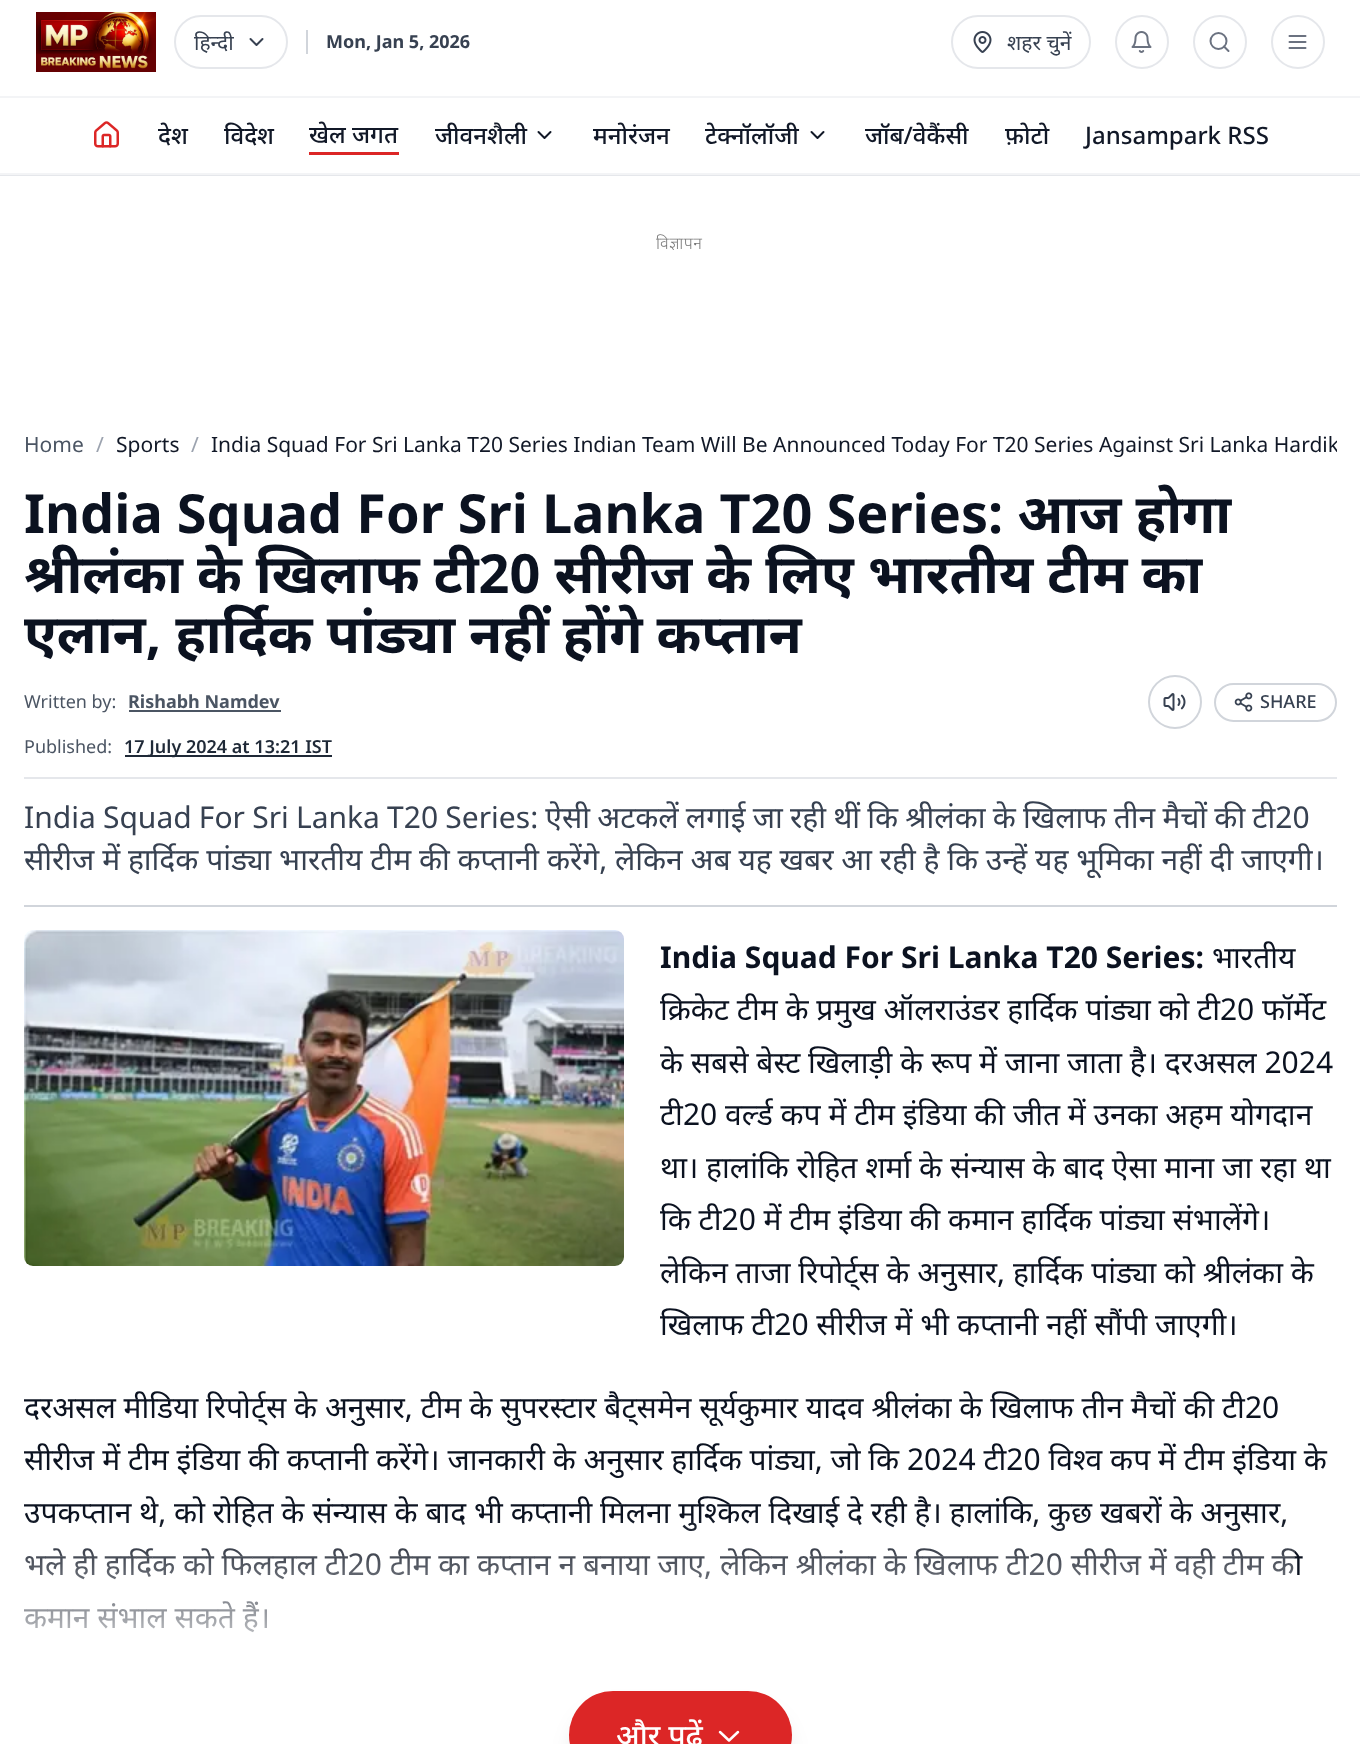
<!DOCTYPE html>
<meta charset="utf-8">
<style>body { margin: 0 } canvas { display: block }</style>
<canvas id="canvas" width="1360" height="1744"></canvas>
<script type="module">
  const canvas = document.getElementById("canvas");
  const ctx = canvas.getContext("2d");
  ctx.miterLimit = 4;
  ctx.fontKerning = "normal";
  async function loadImage(src) {
    const img = new Image();
    img.src = src;
    await img.decode();
    return img;
  }
  let gradient;

  ctx.fillStyle = "#ffffff";
  ctx.fillRect(0, 0, 1360, 1744);
  ctx.fillStyle = "#e5e7eb";
  ctx.fillRect(0, 175, 1360, 1);
  ctx.drawImage(await loadImage("img1.png"), 36, 12, 120, 60);
  ctx.beginPath();
  ctx.roundRect(175, 16, 112, 52, 26);
  ctx.strokeStyle = "#e5e7eb";
  ctx.lineWidth = 2;
  ctx.stroke();
  ctx.font = "21px Noto Sans";
  ctx.fillStyle = "#374151";
  ctx.fillText("हिन्दी", 194, 50);
  ctx.beginPath();
  ctx.moveTo(250.5, 39);
  ctx.lineTo(256.5, 45);
  ctx.lineTo(262.5, 39);
  ctx.strokeStyle = "#374151";
  ctx.lineCap = "round";
  ctx.lineJoin = "round";
  ctx.stroke();
  ctx.fillStyle = "#d1d5db";
  ctx.fillRect(306, 30, 2, 24);
  ctx.font = "bold 18px Noto Sans";
  ctx.fillStyle = "#374151";
  ctx.fillText("Mon, Jan 5, 2026", 326, 48);
  ctx.beginPath();
  ctx.roundRect(952, 16, 138, 52, 26);
  ctx.strokeStyle = "#e5e7eb";
  ctx.lineJoin = "miter";
  ctx.stroke();
  ctx.drawImage(await loadImage("img2.png"), 973, 31, 19, 22);
  ctx.font = "21px Noto Sans";
  ctx.fillText("शहर चुनें", 1007, 50);
  ctx.beginPath();
  ctx.arc(1142, 42, 26, 0, Math.PI * 2);
  ctx.stroke();
  ctx.drawImage(await loadImage("img3.png"), 1131, 31, 21, 22);
  ctx.beginPath();
  ctx.arc(1220, 42, 26, 0, Math.PI * 2);
  ctx.stroke();
  ctx.beginPath();
  ctx.arc(1218.5, 41, 8, 0, Math.PI * 2);
  ctx.strokeStyle = "#6b7280";
  ctx.stroke();
  ctx.beginPath();
  ctx.moveTo(1228.5, 51);
  ctx.lineTo(1224, 46.5);
  ctx.lineJoin = "round";
  ctx.stroke();
  ctx.beginPath();
  ctx.arc(1298, 42, 26, 0, Math.PI * 2);
  ctx.strokeStyle = "#e5e7eb";
  ctx.stroke();
  ctx.beginPath();
  ctx.moveTo(1289.5, 36);
  ctx.lineTo(1305.5, 36);
  ctx.moveTo(1289.5, 42);
  ctx.lineTo(1305.5, 42);
  ctx.moveTo(1289.5, 48);
  ctx.lineTo(1305.5, 48);
  ctx.strokeStyle = "#6b7280";
  ctx.stroke();
  ctx.fillStyle = "#f3f4f6";
  ctx.fillRect(0, 96, 1360, 2);
  ctx.drawImage(await loadImage("img4.png"), 94, 121, 25, 27);
  ctx.font = "500 24px Noto Sans";
  ctx.fillStyle = "#111827";
  ctx.fillText("देश", 158, 144);
  ctx.fillText("विदेश", 224, 144);
  ctx.fillStyle = "#dc2626";
  ctx.fillRect(309, 152, 90, 3);
  ctx.fillStyle = "#111827";
  ctx.fillText("खेल जगत", 309, 143);
  ctx.fillText("जीवनशैली", 435, 144);
  ctx.beginPath();
  ctx.moveTo(538.5, 132);
  ctx.lineTo(544.5, 138);
  ctx.lineTo(550.5, 132);
  ctx.strokeStyle = "#111827";
  ctx.stroke();
  ctx.fillText("मनोरंजन", 593, 144);
  ctx.fillText("टेक्नॉलॉजी", 705, 144);
  ctx.beginPath();
  ctx.moveTo(811.5, 132);
  ctx.lineTo(817.5, 138);
  ctx.lineTo(823.5, 132);
  ctx.stroke();
  ctx.fillText("जॉब/वेकैंसी", 865, 144);
  ctx.fillText("फ़ोटो", 1005, 144);
  ctx.fillText("Jansampark RSS", 1085, 144);
  ctx.fillStyle = "#f3f4f6";
  ctx.fillRect(0, 173, 1360, 2);
  ctx.letterSpacing = "0.5px";
  ctx.font = "300 16.5px Noto Sans";
  ctx.fillStyle = "#777777";
  ctx.fillText("विज्ञापन", 656, 249);
  ctx.letterSpacing = "0px";
  ctx.font = "21px Noto Sans";
  ctx.fillStyle = "#4b5563";
  ctx.fillText("Home", 24, 452);
  ctx.fillStyle = "#9ca3af";
  ctx.fillText("/", 96, 452);
  ctx.fillStyle = "#111827";
  ctx.fillText("Sports", 116, 452);
  ctx.fillStyle = "#9ca3af";
  ctx.fillText("/", 191, 452);
  ctx.save();
  ctx.beginPath();
  ctx.rect(24, 429, 1313, 30);
  ctx.clip();
  ctx.fillStyle = "#111827";
  ctx.fillText("India Squad For Sri Lanka T20 Series Indian Team Will Be Announced Today For T20 Series Against Sri Lanka Hardik", 211, 452);
  ctx.restore();
  ctx.font = "bold 54px Noto Sans";
  ctx.fillStyle = "#0b1220";
  ctx.fillText("India Squad For Sri Lanka T20 Series: आज होगा", 24, 533);
  ctx.fillText("श्रीलंका के खिलाफ टी20 सीरीज के लिए भारतीय टीम का", 24, 593);
  ctx.fillText("एलान, हार्दिक पांड्या नहीं होंगे कप्तान", 24, 653);
  ctx.font = "18px Noto Sans";
  ctx.fillStyle = "#4b5563";
  ctx.fillText("Written by:", 24, 708);
  ctx.font = "bold 18px Noto Sans";
  ctx.fillText("Rishabh Namdev", 128, 708);
  ctx.fillRect(129, 710, 152, 2);
  ctx.beginPath();
  ctx.arc(1175, 702, 26, 0, Math.PI * 2);
  ctx.strokeStyle = "#d1d5db";
  ctx.stroke();
  ctx.drawImage(await loadImage("img5.png"), 1163, 693, 23, 18);
  ctx.beginPath();
  ctx.roundRect(1215, 684, 121, 37, 18.5);
  ctx.lineJoin = "miter";
  ctx.stroke();
  ctx.drawImage(await loadImage("img6.png"), 1234, 692, 19, 20);
  ctx.font = "500 18px Noto Sans";
  ctx.fillStyle = "#374151";
  ctx.fillText("SHARE", 1260, 708);
  ctx.fillStyle = "#e5e7eb";
  ctx.fillRect(24, 777, 1313, 2);
  ctx.font = "18px Noto Sans";
  ctx.fillStyle = "#4b5563";
  ctx.fillText("Published:", 24, 753);
  ctx.fillStyle = "#1f2937";
  ctx.fillRect(125, 755, 207, 2);
  ctx.font = "600 18px Noto Sans";
  ctx.fillText("17 July 2024 at 13:21 IST", 124, 753);
  ctx.wordSpacing = "-0.6px";
  ctx.font = "30px Noto Sans";
  ctx.fillStyle = "#374151";
  ctx.fillText("India Squad For Sri Lanka T20 Series: ऐसी अटकलें लगाई जा रही थीं कि श्रीलंका के खिलाफ तीन मैचों की टी20", 24, 828);
  ctx.wordSpacing = "0px";
  ctx.fillText("सीरीज में हार्दिक पांड्या भारतीय टीम की कप्तानी करेंगे, लेकिन अब यह खबर आ रही है कि उन्हें यह भूमिका नहीं दी जाएगी।", 24, 870);
  ctx.fillStyle = "#d1d5db";
  ctx.fillRect(24, 905, 1313, 2);
  ctx.drawImage(await loadImage("img7.png"), 24, 930, 600, 336);
  ctx.font = "bold 30px Noto Sans";
  ctx.fillStyle = "#0b1220";
  ctx.fillText("India Squad For Sri Lanka T20 Series:", 660, 968);
  ctx.font = "30px Noto Sans";
  ctx.fillText("भारतीय", 1212, 968);
  ctx.fillText("क्रिकेट टीम के प्रमुख ऑलराउंडर हार्दिक पांड्या को टी20 फॉर्मेट", 660, 1020);
  ctx.fillText("के सबसे बेस्ट खिलाड़ी के रूप में जाना जाता है। दरअसल 2024", 660, 1073);
  ctx.fillText("टी20 वर्ल्ड कप में टीम इंडिया की जीत में उनका अहम योगदान", 660, 1125);
  ctx.fillText("था। हालांकि रोहित शर्मा के संन्यास के बाद ऐसा माना जा रहा था", 660, 1178);
  ctx.fillText("कि टी20 में टीम इंडिया की कमान हार्दिक पांड्या संभालेंगे।", 660, 1230);
  ctx.fillText("लेकिन ताजा रिपोर्ट्स के अनुसार, हार्दिक पांड्या को श्रीलंका के", 660, 1283);
  ctx.fillText("खिलाफ टी20 सीरीज में भी कप्तानी नहीं सौंपी जाएगी।", 660, 1335);
  ctx.fillText("दरअसल मीडिया रिपोर्ट्स के अनुसार, टीम के सुपरस्टार बैट्समेन सूर्यकुमार यादव श्रीलंका के खिलाफ तीन मैचों की टी20", 24, 1418);
  ctx.fillText("सीरीज में टीम इंडिया की कप्तानी करेंगे। जानकारी के अनुसार हार्दिक पांड्या, जो कि 2024 टी20 विश्व कप में टीम इंडिया के", 24, 1470);
  ctx.fillText("उपकप्तान थे, को रोहित के संन्यास के बाद भी कप्तानी मिलना मुश्किल दिखाई दे रही है। हालांकि, कुछ खबरों के अनुसार,", 24, 1523);
  ctx.fillText("भले ही हार्दिक को फिलहाल टी20 टीम का कप्तान न बनाया जाए, लेकिन श्रीलंका के खिलाफ टी20 सीरीज में वही टीम की", 24, 1575);
  ctx.fillText("कमान संभाल सकते हैं।", 24, 1628);
  gradient = ctx.createLinearGradient(680, 1515, 680, 1740);
  gradient.addColorStop(0, "rgba(255, 255, 255, 0)");
  gradient.addColorStop(0.3, "rgba(255, 255, 255, 0.4)");
  gradient.addColorStop(0.6, "rgba(255, 255, 255, 0.8)");
  gradient.addColorStop(0.85, "rgba(255, 255, 255, 0.95)");
  gradient.addColorStop(1, "#ffffff");
  ctx.fillStyle = gradient;
  ctx.fillRect(24, 1519, 1271, 114);
  ctx.fillStyle = "rgba(0, 0, 0, 0.1)";
  ctx.filter = "blur(11px)";
  ctx.beginPath();
  ctx.roundRect(573, 1710, 215, 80, 40);
  ctx.fill();
  ctx.filter = "none";
  ctx.fillStyle = "#dc2626";
  ctx.beginPath();
  ctx.roundRect(569, 1691, 223, 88, 44);
  ctx.fill();
  ctx.font = "500 30px Noto Sans";
  ctx.fillStyle = "#ffffff";
  ctx.fillText("और पढ़ें", 616, 1746);
  ctx.beginPath();
  ctx.moveTo(738, 1732);
  ctx.lineTo(729, 1740.5);
  ctx.lineTo(720, 1732);
  ctx.strokeStyle = "#ffffff";
  ctx.lineWidth = 2.5;
  ctx.lineJoin = "round";
  ctx.stroke();
</script>
